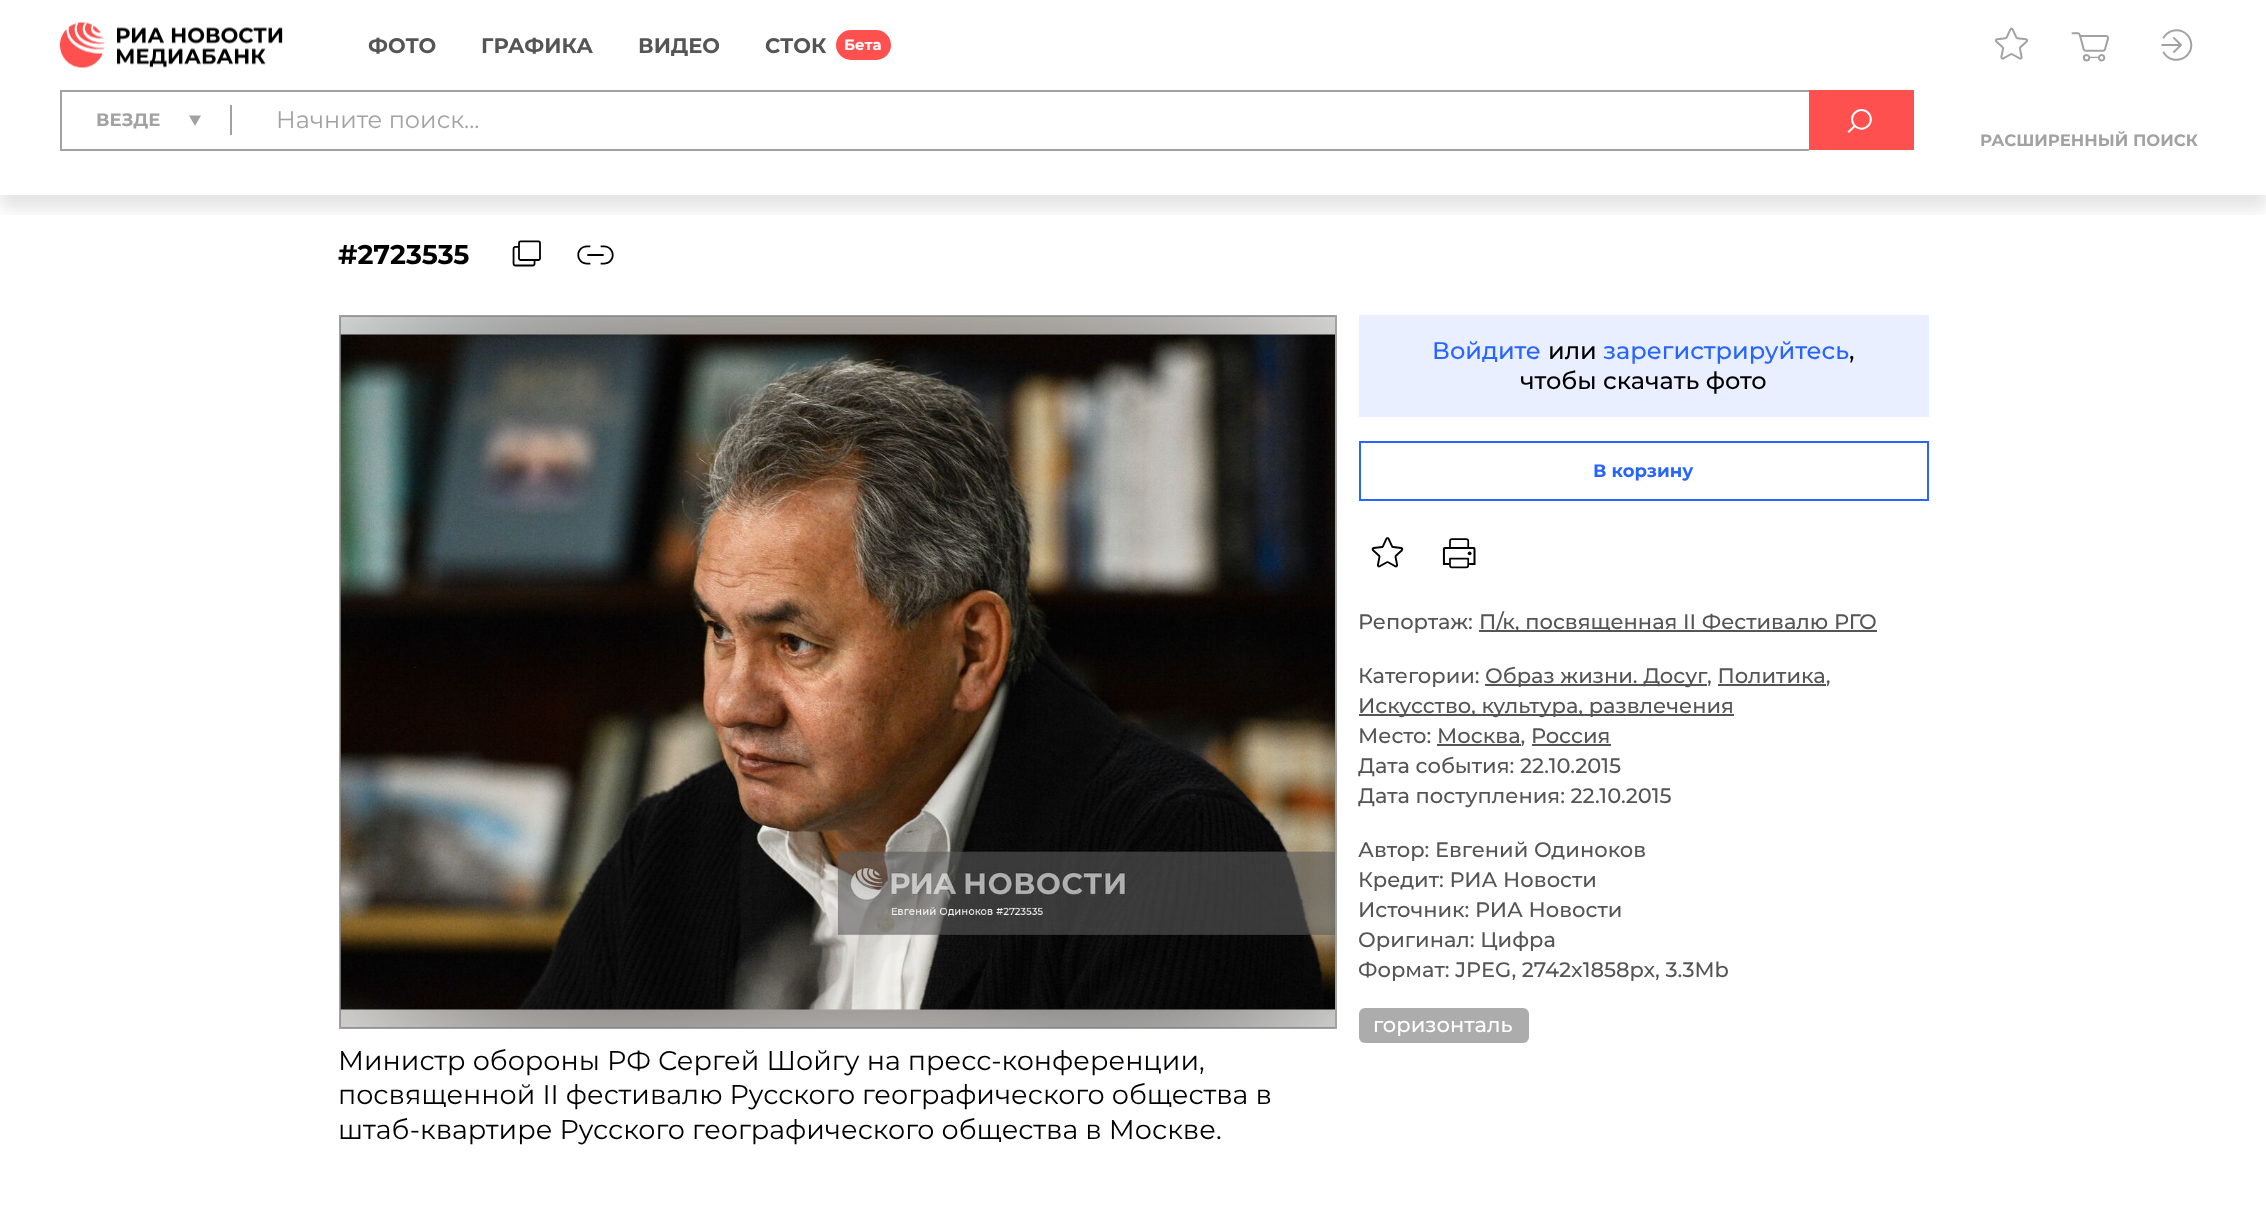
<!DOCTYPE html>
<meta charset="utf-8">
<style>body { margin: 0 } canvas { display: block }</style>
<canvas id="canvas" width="2266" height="1230"></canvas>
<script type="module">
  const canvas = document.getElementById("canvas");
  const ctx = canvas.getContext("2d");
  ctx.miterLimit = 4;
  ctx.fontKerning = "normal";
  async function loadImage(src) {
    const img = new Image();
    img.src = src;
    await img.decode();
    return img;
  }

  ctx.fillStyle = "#ffffff";
  ctx.fillRect(0, 0, 2266, 1230);
  ctx.save();
  ctx.beginPath();
  ctx.rect(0, 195, 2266, 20);
  ctx.clip();
  ctx.fillStyle = "rgba(0, 0, 0, 0.1)";
  ctx.filter = "blur(7.5px)";
  ctx.beginPath();
  ctx.rect(0, 14, 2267, 195);
  ctx.fill();
  ctx.filter = "none";
  ctx.restore();
  ctx.drawImage(await loadImage("img1.png"), 60, 22, 223, 46);
  ctx.font = "bold 21px Montserrat";
  ctx.fillStyle = "#555555";
  ctx.fillText("ФОТО", 368, 53);
  ctx.fillText("ГРАФИКА", 481, 53);
  ctx.fillText("ВИДЕО", 638, 53);
  ctx.fillText("СТОК", 765, 53);
  ctx.fillStyle = "#ff5050";
  ctx.beginPath();
  ctx.roundRect(836, 30, 55, 30, 15);
  ctx.fill();
  ctx.font = "bold 15px Montserrat";
  ctx.fillStyle = "#ffffff";
  ctx.fillText("Бета", 844, 50);
  ctx.drawImage(await loadImage("img2.png"), 1994, 27, 34, 33);
  ctx.drawImage(await loadImage("img3.png"), 2071, 32, 38, 30);
  ctx.drawImage(await loadImage("img4.png"), 2161, 29, 32, 32);
  ctx.fillStyle = "#a3a2a2";
  ctx.fillRect(60, 90, 1749, 2);
  ctx.fillRect(60, 149, 1749, 2);
  ctx.fillRect(60, 90, 2, 60);
  ctx.font = "bold 18px Montserrat";
  ctx.fillText("ВЕЗДЕ", 96, 126);
  ctx.beginPath();
  ctx.moveTo(189, 115.5);
  ctx.lineTo(201, 115.5);
  ctx.lineTo(195, 126);
  ctx.closePath();
  ctx.fill();
  ctx.fillRect(230, 105, 2, 30);
  ctx.font = "24px Montserrat";
  ctx.fillText("Начните поиск...", 276, 128);
  ctx.fillStyle = "#ff5050";
  ctx.fillRect(1809, 90, 105, 60);
  ctx.drawImage(await loadImage("img5.png"), 1847, 109, 25, 24);
  ctx.font = "bold 16.5px Montserrat";
  ctx.fillStyle = "#a3a2a2";
  ctx.fillText("РАСШИРЕННЫЙ ПОИСК", 1980, 146);
  ctx.font = "bold 27px Montserrat";
  ctx.fillStyle = "#000000";
  ctx.fillText("#2723535", 338, 264);
  ctx.drawImage(await loadImage("img6.png"), 512, 240, 29, 27);
  ctx.drawImage(await loadImage("img7.png"), 577, 245, 37, 20);
  ctx.fillStyle = "#e9efff";
  ctx.fillRect(1359, 315, 570, 102);
  ctx.font = "500 24px Montserrat";
  ctx.fillStyle = "#2864ff";
  ctx.fillText("Войдите", 1432, 359);
  ctx.fillStyle = "#000000";
  ctx.fillText("или", 1548, 359);
  ctx.fillStyle = "#2864ff";
  ctx.fillText("зарегистрируйтесь", 1603, 359);
  ctx.fillStyle = "#000000";
  ctx.fillText(",", 1849, 359);
  ctx.fillText("чтобы скачать фото", 1520, 389);
  ctx.strokeStyle = "#2864ff";
  ctx.lineWidth = 2;
  ctx.strokeRect(1360, 442, 568, 58);
  ctx.font = "bold 18px Montserrat";
  ctx.fillStyle = "#2864ff";
  ctx.fillText("В корзину", 1593, 477);
  ctx.drawImage(await loadImage("img8.png"), 1371, 537, 33, 31);
  ctx.drawImage(await loadImage("img9.png"), 1442, 538, 34, 31);
  ctx.font = "500 21px Montserrat";
  ctx.fillStyle = "#555555";
  ctx.fillText("Репортаж:", 1358, 629);
  ctx.fillRect(1479, 630, 398, 2);
  ctx.fillText("П/к, посвященная II Фестивалю РГО", 1479, 629);
  ctx.fillText("Категории:", 1358, 683);
  ctx.fillRect(1485, 684, 222, 2);
  ctx.fillText("Образ жизни. Досуг", 1485, 683);
  ctx.fillText(", Политика,", 1707, 683);
  ctx.fillRect(1718, 684, 108, 2);
  ctx.fillRect(1359, 714, 375, 2);
  ctx.fillText("Искусство, культура, развлечения", 1358, 713);
  ctx.fillText("Место: Москва, Россия", 1358, 743);
  ctx.fillRect(1437, 744, 84, 2);
  ctx.fillRect(1532, 744, 79, 2);
  ctx.fillText("Дата события: 22.10.2015", 1358, 773);
  ctx.fillText("Дата поступления: 22.10.2015", 1358, 803);
  ctx.fillText("Автор: Евгений Одиноков", 1358, 857);
  ctx.fillText("Кредит: РИА Новости", 1358, 887);
  ctx.fillText("Источник: РИА Новости", 1358, 917);
  ctx.fillText("Оригинал: Цифра", 1358, 947);
  ctx.fillText("Формат: JPEG, 2742x1858px, 3.3Mb", 1358, 977);
  ctx.fillStyle = "#acacac";
  ctx.beginPath();
  ctx.roundRect(1359, 1008, 170, 35, 6);
  ctx.fill();
  ctx.fillStyle = "#ffffff";
  ctx.fillText("горизонталь", 1373, 1032);
  ctx.strokeStyle = "#a3a2a2";
  ctx.strokeRect(340, 316, 996, 712);
  ctx.drawImage(await loadImage("img10.png"), 340, 316, 995, 712);
  ctx.drawImage(await loadImage("img11.png"), 340, 334, 995, 676);
  ctx.font = "27px Montserrat";
  ctx.fillStyle = "#000000";
  ctx.fillText("Министр обороны РФ Сергей Шойгу на пресс-конференции,", 338, 1070);
  ctx.fillText("посвященной II фестивалю Русского географического общества в", 338, 1104);
  ctx.fillText("штаб-квартире Русского географического общества в Москве.", 338, 1139);
</script>
